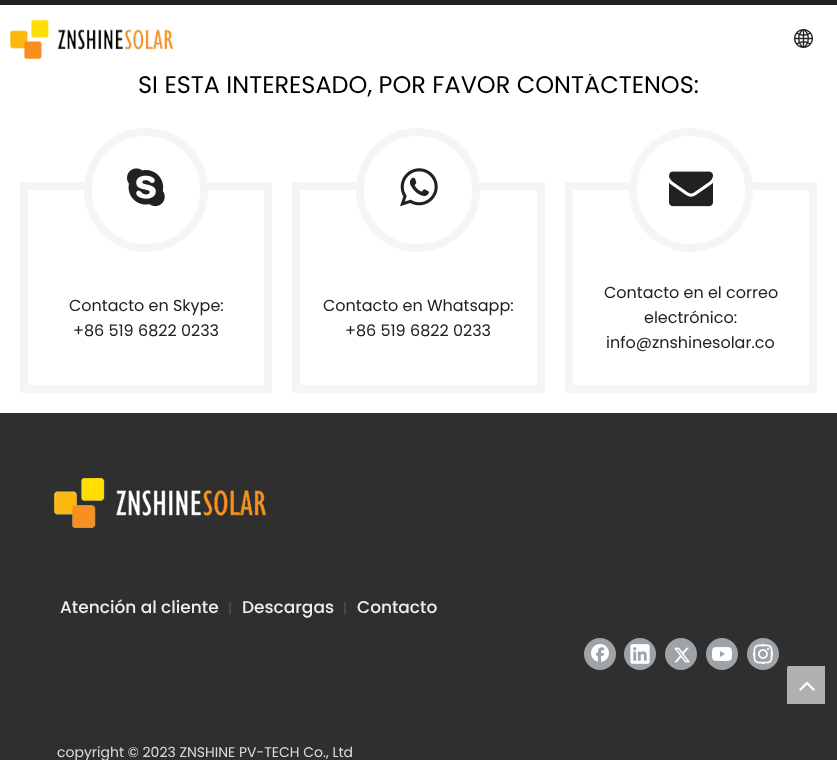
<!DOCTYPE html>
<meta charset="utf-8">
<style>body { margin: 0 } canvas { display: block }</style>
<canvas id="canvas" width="837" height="760"></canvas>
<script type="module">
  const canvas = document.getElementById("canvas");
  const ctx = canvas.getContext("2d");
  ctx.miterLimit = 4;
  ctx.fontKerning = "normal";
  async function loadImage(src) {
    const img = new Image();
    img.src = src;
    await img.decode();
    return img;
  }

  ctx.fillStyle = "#ffffff";
  ctx.fillRect(0, 0, 837, 760);
  ctx.font = "24px Poppins";
  ctx.fillStyle = "#000000";
  ctx.fillText("SI ESTA INTERESADO, POR FAVOR CONTÁCTENOS:", 138, 93);
  ctx.fillStyle = "#ffffff";
  ctx.fillRect(589, 70, 6, 4);
  ctx.fillStyle = "#212123";
  ctx.fillRect(0, 0, 837, 5);
  ctx.drawImage(await loadImage("img1.png"), 10, 19, 163, 41);
  ctx.drawImage(await loadImage("img2.png"), 794, 29, 19, 19);
  ctx.strokeStyle = "#f5f5f5";
  ctx.lineWidth = 8;
  ctx.strokeRect(24, 186, 244, 203);
  ctx.fillStyle = "#ffffff";
  ctx.beginPath();
  ctx.arc(146, 190, 58, 0, Math.PI * 2);
  ctx.fill();
  ctx.stroke();
  ctx.drawImage(await loadImage("img3.png"), 127, 168, 38, 39);
  ctx.font = "16px Poppins";
  ctx.fillStyle = "#212121";
  ctx.fillText("Contacto en Skype:", 69, 311);
  ctx.fillText("+86 519 6822 0233", 73, 336);
  ctx.strokeRect(296, 186, 245, 203);
  ctx.fillStyle = "#ffffff";
  ctx.beginPath();
  ctx.arc(418, 190, 58, 0, Math.PI * 2);
  ctx.fill();
  ctx.stroke();
  ctx.drawImage(await loadImage("img4.png"), 400, 168, 38, 39);
  ctx.fillStyle = "#212121";
  ctx.fillText("Contacto en Whatsapp:", 323, 311);
  ctx.fillText("+86 519 6822 0233", 345, 336);
  ctx.strokeRect(569, 186, 244, 203);
  ctx.fillStyle = "#ffffff";
  ctx.beginPath();
  ctx.arc(691, 190, 58, 0, Math.PI * 2);
  ctx.fill();
  ctx.stroke();
  ctx.drawImage(await loadImage("img5.png"), 669, 171, 44, 36);
  ctx.fillStyle = "#212121";
  ctx.fillText("Contacto en el correo", 604, 298);
  ctx.fillText("electrónico:", 644, 323);
  ctx.fillText("info@znshinesolar.co", 606, 348);
  ctx.fillStyle = "#2f2f2f";
  ctx.fillRect(0, 413, 837, 347);
  ctx.drawImage(await loadImage("img6.png"), 54, 478, 212, 50);
  ctx.font = "500 17px Poppins";
  ctx.fillStyle = "#eeeeee";
  ctx.fillText("Atención al cliente", 60, 613);
  ctx.font = "14px Poppins";
  ctx.fillStyle = "#545454";
  ctx.fillText("|", 228, 613);
  ctx.font = "500 17px Poppins";
  ctx.fillStyle = "#eeeeee";
  ctx.fillText("Descargas", 242, 613);
  ctx.font = "14px Poppins";
  ctx.fillStyle = "#545454";
  ctx.fillText("|", 343, 613);
  ctx.font = "500 17px Poppins";
  ctx.fillStyle = "#eeeeee";
  ctx.fillText("Contacto", 357, 613);
  ctx.fillStyle = "#9ea3a7";
  ctx.beginPath();
  ctx.arc(600, 654, 16, 0, Math.PI * 2);
  ctx.fill();
  ctx.drawImage(await loadImage("img7.png"), 591, 644, 18, 18);
  ctx.beginPath();
  ctx.arc(640, 654, 16, 0, Math.PI * 2);
  ctx.fill();
  ctx.drawImage(await loadImage("img8.png"), 630, 644, 20, 20);
  ctx.beginPath();
  ctx.arc(681, 654, 16, 0, Math.PI * 2);
  ctx.fill();
  ctx.drawImage(await loadImage("img9.png"), 674, 647, 16, 16);
  ctx.beginPath();
  ctx.arc(722, 654, 16, 0, Math.PI * 2);
  ctx.fill();
  ctx.drawImage(await loadImage("img10.png"), 712, 647, 20, 14);
  ctx.beginPath();
  ctx.arc(763, 654, 16, 0, Math.PI * 2);
  ctx.fill();
  ctx.drawImage(await loadImage("img11.png"), 753, 644, 20, 20);
  ctx.font = "14px Poppins";
  ctx.fillStyle = "#dddddd";
  ctx.fillText("copyright © 2023 ZNSHINE PV-TECH Co., Ltd", 57, 757);
  ctx.drawImage(await loadImage("img12.png"), 787, 666, 38, 38);
</script>
